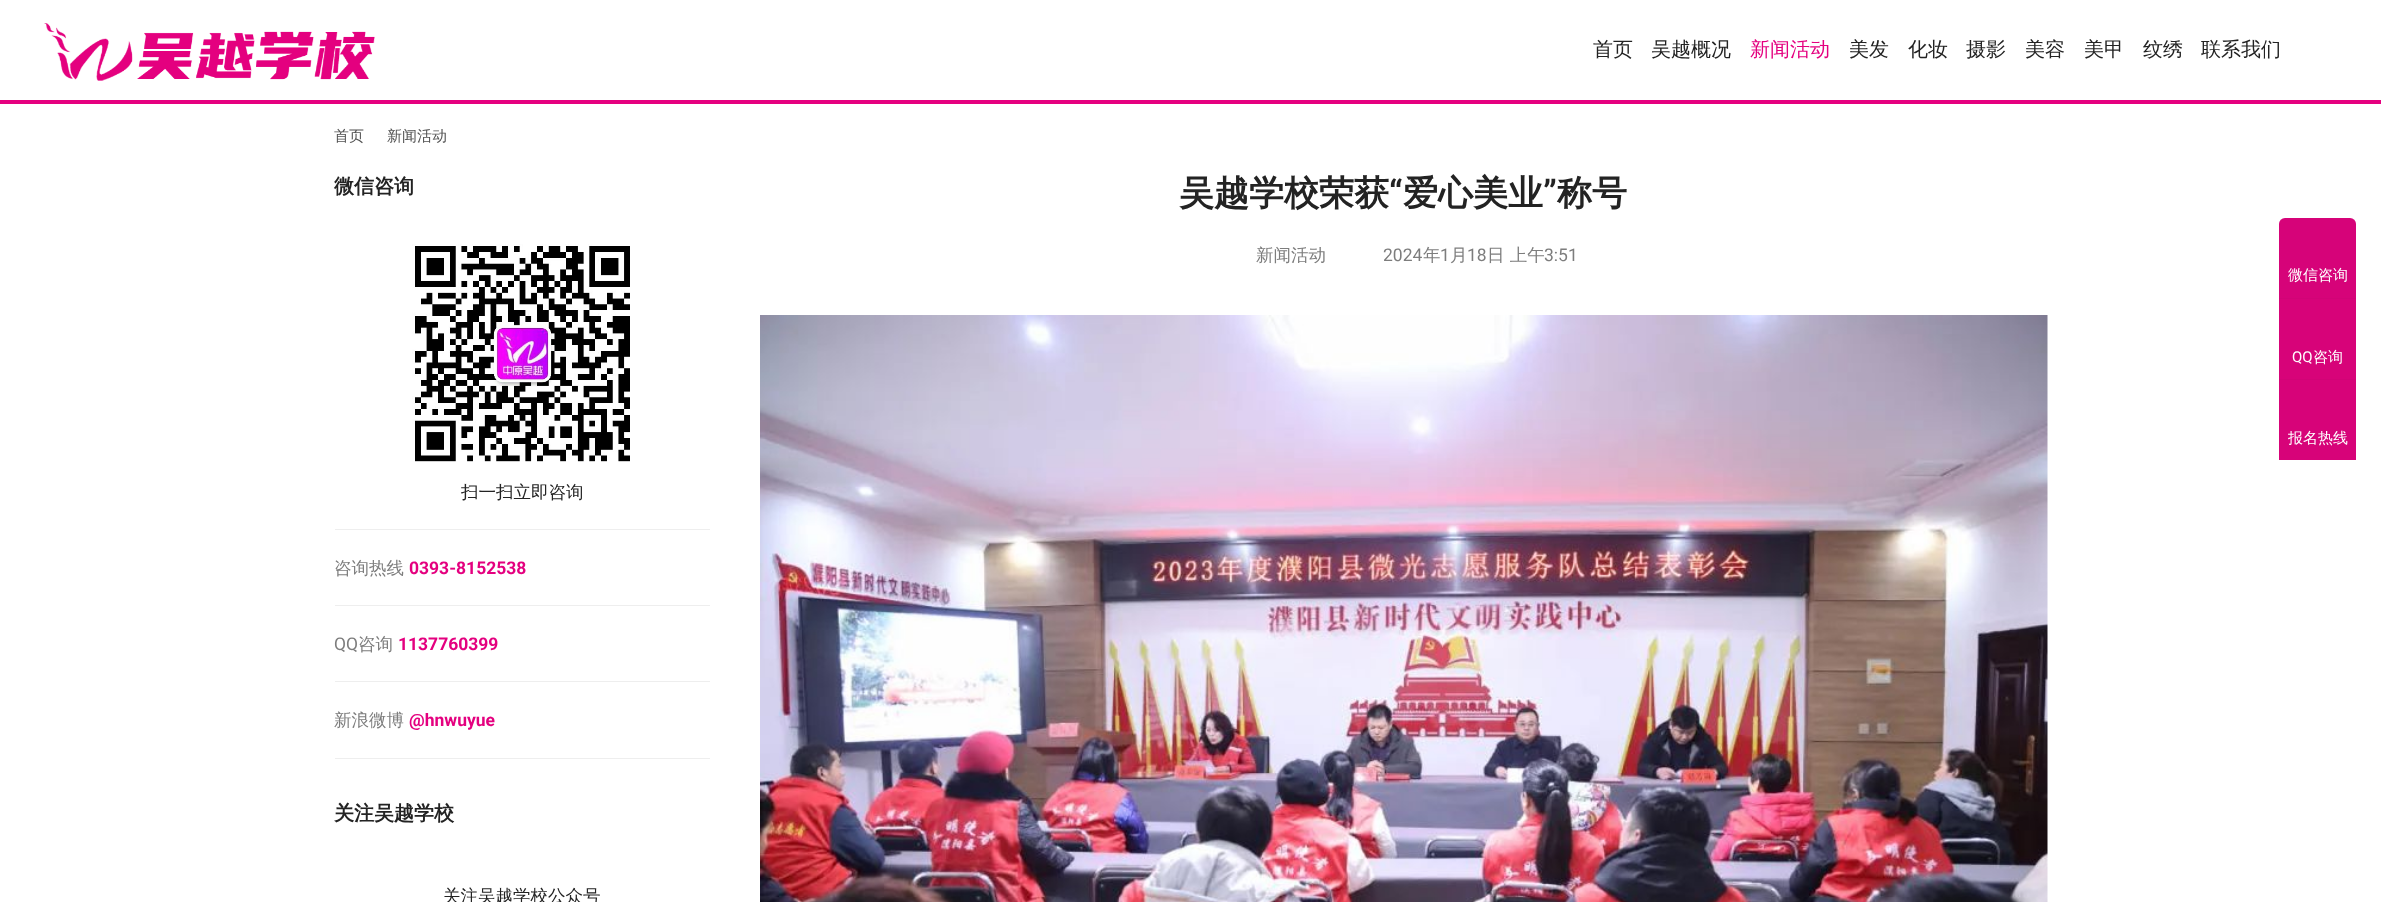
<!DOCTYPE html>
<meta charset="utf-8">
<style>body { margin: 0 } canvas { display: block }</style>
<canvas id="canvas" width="2381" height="902"></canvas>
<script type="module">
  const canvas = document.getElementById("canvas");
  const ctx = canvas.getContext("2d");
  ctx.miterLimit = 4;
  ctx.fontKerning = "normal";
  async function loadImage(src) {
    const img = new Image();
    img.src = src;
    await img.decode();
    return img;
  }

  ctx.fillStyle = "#ffffff";
  ctx.fillRect(0, 0, 2381, 902);
  ctx.drawImage(await loadImage("img1.png"), 44, 23, 331, 58);
  ctx.font = "500 20px WenQuanYi Zen Hei";
  ctx.fillStyle = "#232323";
  ctx.fillText("首页", 1593, 56);
  ctx.fillText("吴越概况", 1651, 56);
  ctx.fillStyle = "#e4007f";
  ctx.fillText("新闻活动", 1750, 56);
  ctx.fillStyle = "#232323";
  ctx.fillText("美发", 1849, 56);
  ctx.fillText("化妆", 1908, 56);
  ctx.fillText("摄影", 1966, 56);
  ctx.fillText("美容", 2025, 56);
  ctx.fillText("美甲", 2084, 56);
  ctx.fillText("纹绣", 2143, 56);
  ctx.fillText("联系我们", 2201, 56);
  ctx.fillStyle = "#e5007f";
  ctx.fillRect(0, 100, 2381, 4);
  ctx.font = "500 15px WenQuanYi Zen Hei";
  ctx.fillStyle = "#515151";
  ctx.fillText("首页", 334, 141);
  ctx.fillText("新闻活动", 387, 141);
  ctx.font = "bold 20px WenQuanYi Zen Hei";
  ctx.fillStyle = "#232323";
  ctx.fillText("微信咨询", 334, 193);
  ctx.drawImage(await loadImage("img2.png"), 412, 244, 218, 218);
  ctx.font = "500 17.5px WenQuanYi Zen Hei";
  ctx.fillText("扫一扫立即咨询", 461, 498);
  ctx.fillStyle = "#eeeeee";
  ctx.fillRect(335, 529, 375, 1);
  ctx.fillStyle = "#7d7d7d";
  ctx.fillText("咨询热线", 334, 574);
  ctx.font = "bold 17.5px Roboto";
  ctx.fillStyle = "#e4007f";
  ctx.fillText("0393-8152538", 409, 574);
  ctx.fillStyle = "#eeeeee";
  ctx.fillRect(335, 605, 375, 1);
  ctx.font = "17.5px Roboto";
  ctx.fillStyle = "#7d7d7d";
  ctx.fillText("QQ", 334, 650);
  ctx.font = "500 17.5px WenQuanYi Zen Hei";
  ctx.fillText("咨询", 358, 650);
  ctx.font = "bold 17.5px Roboto";
  ctx.fillStyle = "#e4007f";
  ctx.fillText("1137760399", 398, 650);
  ctx.fillStyle = "#eeeeee";
  ctx.fillRect(335, 681, 375, 1);
  ctx.font = "500 17.5px WenQuanYi Zen Hei";
  ctx.fillStyle = "#7d7d7d";
  ctx.fillText("新浪微博", 334, 726);
  ctx.font = "bold 17.5px Roboto";
  ctx.fillStyle = "#e4007f";
  ctx.fillText("@hnwuyue", 409, 726);
  ctx.fillStyle = "#eeeeee";
  ctx.fillRect(335, 758, 375, 1);
  ctx.font = "bold 20px WenQuanYi Zen Hei";
  ctx.fillStyle = "#232323";
  ctx.fillText("关注吴越学校", 334, 820);
  ctx.font = "500 17.5px WenQuanYi Zen Hei";
  ctx.fillText("关注吴越学校公众号", 443, 902);
  ctx.font = "bold 35px WenQuanYi Zen Hei";
  ctx.fillText("吴越学校荣获", 1179, 205);
  ctx.font = "600 35px Roboto";
  ctx.fillText("“", 1389, 205);
  ctx.font = "bold 35px WenQuanYi Zen Hei";
  ctx.fillText("爱心美业", 1403, 205);
  ctx.font = "600 35px Roboto";
  ctx.fillText("”", 1543, 205);
  ctx.font = "bold 35px WenQuanYi Zen Hei";
  ctx.fillText("称号", 1557, 205);
  ctx.font = "500 17.5px WenQuanYi Zen Hei";
  ctx.fillStyle = "#7d7d7d";
  ctx.fillText("新闻活动", 1256, 261);
  ctx.font = "17.5px Roboto";
  ctx.fillText("2024", 1383, 261);
  ctx.font = "500 17.5px WenQuanYi Zen Hei";
  ctx.fillText("年", 1423, 261);
  ctx.font = "17.5px Roboto";
  ctx.fillText("1", 1440, 261);
  ctx.font = "500 17.5px WenQuanYi Zen Hei";
  ctx.fillText("月", 1450, 261);
  ctx.font = "17.5px Roboto";
  ctx.fillText("18", 1467, 261);
  ctx.font = "500 17.5px WenQuanYi Zen Hei";
  ctx.fillText("日 上午", 1487, 261);
  ctx.font = "17.5px Roboto";
  ctx.fillText("3:51", 1544, 261);
  ctx.drawImage(await loadImage("img3.png"), 760, 315, 1288, 587);
  ctx.fillStyle = "#e4007f";
  ctx.beginPath();
  ctx.roundRect(2279, 218, 77, 80, [6, 6, 0, 0]);
  ctx.fill();
  ctx.fillStyle = "rgba(38, 38, 38, 0.07)";
  ctx.beginPath();
  ctx.roundRect(2279, 218, 77, 80, [6, 6, 0, 0]);
  ctx.fill();
  ctx.font = "500 15px WenQuanYi Zen Hei";
  ctx.fillStyle = "#ffffff";
  ctx.fillText("微信咨询", 2288, 280);
  ctx.fillStyle = "#d10476";
  ctx.fillRect(2279, 298, 77, 1);
  ctx.fillStyle = "#d70379";
  ctx.fillRect(2279, 299, 77, 80);
  ctx.font = "15px Roboto";
  ctx.fillStyle = "#ffffff";
  ctx.fillText("QQ", 2292, 362);
  ctx.font = "500 15px WenQuanYi Zen Hei";
  ctx.fillText("咨询", 2313, 362);
  ctx.fillStyle = "#d10476";
  ctx.fillRect(2279, 379, 77, 1);
  ctx.fillStyle = "#d70379";
  ctx.fillRect(2279, 380, 77, 80);
  ctx.fillStyle = "#ffffff";
  ctx.fillText("报名热线", 2288, 443);
</script>
